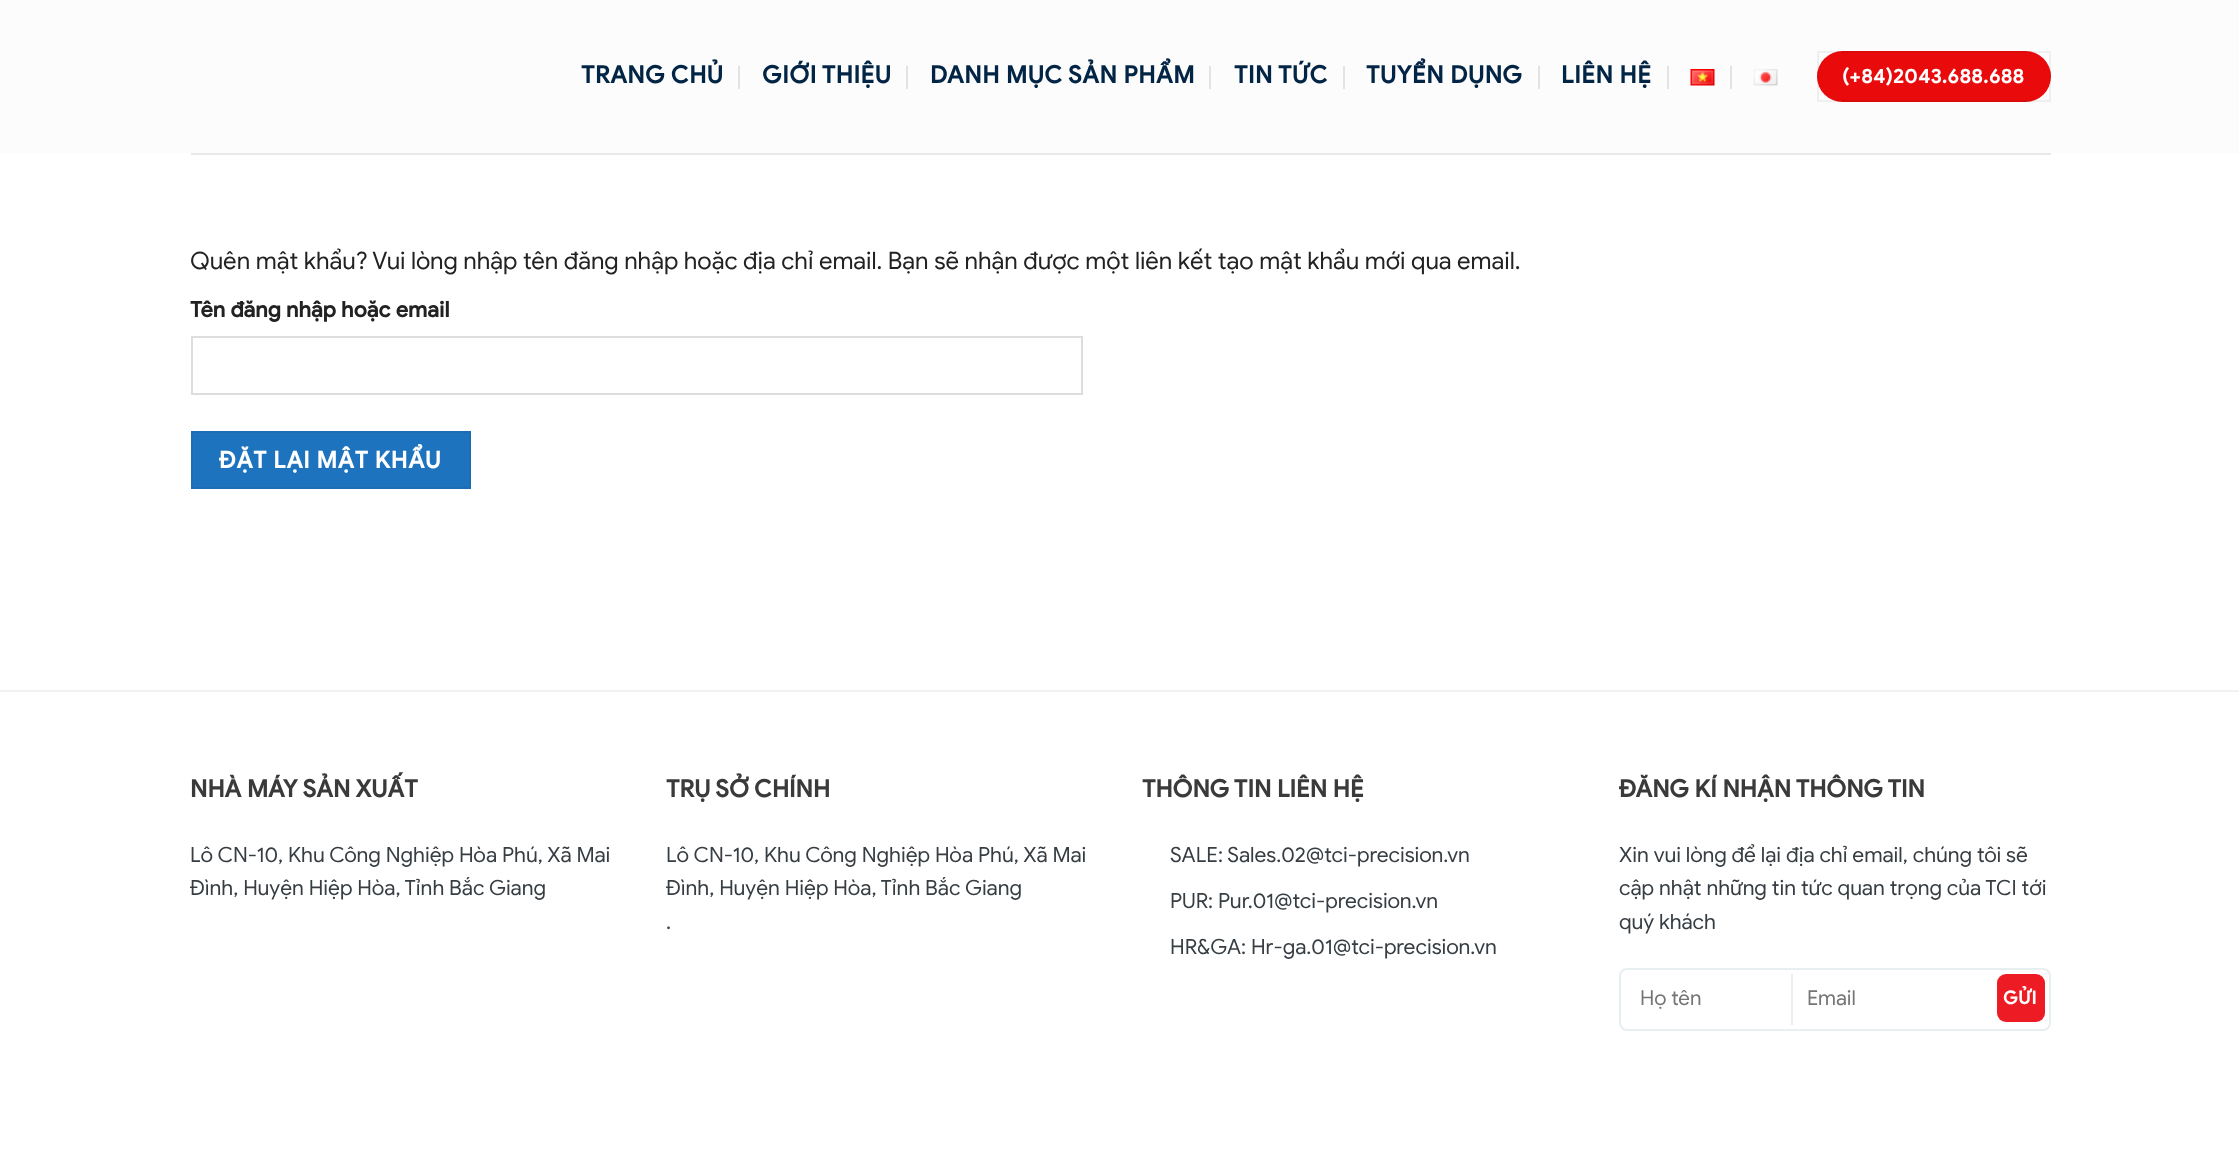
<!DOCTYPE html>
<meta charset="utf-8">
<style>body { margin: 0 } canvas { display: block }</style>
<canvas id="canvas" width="2239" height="1155"></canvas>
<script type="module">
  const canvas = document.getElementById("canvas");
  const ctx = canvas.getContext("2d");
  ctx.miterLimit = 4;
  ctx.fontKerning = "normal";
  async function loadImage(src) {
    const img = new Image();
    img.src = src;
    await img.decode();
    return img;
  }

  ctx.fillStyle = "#ffffff";
  ctx.fillRect(0, 0, 2239, 1155);
  ctx.fillStyle = "#fcfcfc";
  ctx.fillRect(0, 0, 2239, 153);
  ctx.letterSpacing = "0.5px";
  ctx.font = "bold 24px Google Sans";
  ctx.fillStyle = "#022545";
  ctx.fillText("TRANG CHỦ", 581, 83);
  ctx.fillStyle = "#e3e3e3";
  ctx.fillRect(738, 66, 2, 23);
  ctx.fillStyle = "#022545";
  ctx.fillText("GIỚI THIỆU", 762, 83);
  ctx.fillStyle = "#e3e3e3";
  ctx.fillRect(906, 66, 2, 23);
  ctx.fillStyle = "#022545";
  ctx.fillText("DANH MỤC SẢN PHẨM", 930, 83);
  ctx.fillStyle = "#e3e3e3";
  ctx.fillRect(1209, 66, 2, 23);
  ctx.fillStyle = "#022545";
  ctx.fillText("TIN TỨC", 1234, 83);
  ctx.fillStyle = "#e3e3e3";
  ctx.fillRect(1343, 66, 2, 23);
  ctx.fillStyle = "#022545";
  ctx.fillText("TUYỂN DỤNG", 1366, 83);
  ctx.fillStyle = "#e3e3e3";
  ctx.fillRect(1538, 66, 2, 23);
  ctx.fillStyle = "#022545";
  ctx.fillText("LIÊN HỆ", 1561, 83);
  ctx.fillStyle = "#e3e3e3";
  ctx.fillRect(1667, 66, 2, 23);
  ctx.drawImage(await loadImage("img1.png"), 1690, 69, 25, 17);
  ctx.fillRect(1730, 66, 2, 23);
  ctx.drawImage(await loadImage("img2.png"), 1753, 69, 25, 17);
  ctx.fillStyle = "#e90b0b";
  ctx.beginPath();
  ctx.roundRect(1817, 51, 234, 51, 25.5);
  ctx.fill();
  ctx.strokeStyle = "rgba(0, 0, 0, 0.05)";
  ctx.lineWidth = 2;
  ctx.strokeRect(1818, 52, 232, 49);
  ctx.letterSpacing = "0.6px";
  ctx.font = "bold 19.75px Google Sans";
  ctx.fillStyle = "#ffffff";
  ctx.fillText("(+84)2043.688.688", 1842, 83);
  ctx.fillStyle = "#e9e9e9";
  ctx.fillRect(191, 153, 1860, 2);
  ctx.letterSpacing = "0px";
  ctx.font = "24px Google Sans";
  ctx.fillStyle = "#222222";
  ctx.fillText("Quên mật khẩu? Vui lòng nhập tên đăng nhập hoặc địa chỉ email. Bạn sẽ nhận được một liên kết tạo mật khẩu mới qua email.", 190, 269);
  ctx.font = "bold 21.6px Google Sans";
  ctx.fillText("Tên đăng nhập hoặc email", 190, 317);
  ctx.strokeStyle = "#dddddd";
  ctx.strokeRect(192, 337, 890, 57);
  ctx.fillStyle = "#1e73be";
  ctx.beginPath();
  ctx.rect(192, 432, 278, 56);
  ctx.fill();
  ctx.strokeStyle = "#1d6db5";
  ctx.stroke();
  ctx.letterSpacing = "0.75px";
  ctx.font = "bold 23.25px Google Sans";
  ctx.fillStyle = "#ffffff";
  ctx.fillText("ĐẶT LẠI MẬT KHẨU", 219, 468);
  ctx.fillStyle = "#f2f2f2";
  ctx.fillRect(0, 690, 2239, 2);
  ctx.letterSpacing = "0px";
  ctx.font = "bold 24px Google Sans";
  ctx.fillStyle = "#3a3a3a";
  ctx.fillText("NHÀ MÁY SẢN XUẤT", 190, 797);
  ctx.font = "21px Google Sans";
  ctx.fillStyle = "#373e43";
  ctx.fillText("Lô CN-10, Khu Công Nghiệp Hòa Phú, Xã Mai", 190, 862);
  ctx.fillText("Đình, Huyện Hiệp Hòa, Tỉnh Bắc Giang", 190, 895);
  ctx.font = "bold 24px Google Sans";
  ctx.fillStyle = "#3a3a3a";
  ctx.fillText("TRỤ SỞ CHÍNH", 666, 797);
  ctx.font = "21px Google Sans";
  ctx.fillStyle = "#373e43";
  ctx.fillText("Lô CN-10, Khu Công Nghiệp Hòa Phú, Xã Mai", 666, 862);
  ctx.fillText("Đình, Huyện Hiệp Hòa, Tỉnh Bắc Giang", 666, 895);
  ctx.fillText(".", 666, 929);
  ctx.font = "bold 24px Google Sans";
  ctx.fillStyle = "#3a3a3a";
  ctx.fillText("THÔNG TIN LIÊN HỆ", 1142, 797);
  ctx.font = "21px Google Sans";
  ctx.fillStyle = "#373e43";
  ctx.fillText("SALE: Sales.02@tci-precision.vn", 1170, 862);
  ctx.fillText("PUR: Pur.01@tci-precision.vn", 1170, 908);
  ctx.fillText("HR&GA: Hr-ga.01@tci-precision.vn", 1170, 954);
  ctx.font = "bold 24px Google Sans";
  ctx.fillStyle = "#3a3a3a";
  ctx.fillText("ĐĂNG KÍ NHẬN THÔNG TIN", 1619, 797);
  ctx.font = "21px Google Sans";
  ctx.fillStyle = "#373e43";
  ctx.fillText("Xin vui lòng để lại địa chỉ email, chúng tôi sẽ", 1619, 862);
  ctx.fillText("cập nhật những tin tức quan trọng của TCI tới", 1619, 895);
  ctx.fillText("quý khách", 1619, 929);
  ctx.beginPath();
  ctx.roundRect(1620, 969, 430, 61, 7);
  ctx.strokeStyle = "#e8eff1";
  ctx.stroke();
  ctx.fillStyle = "#e8eff1";
  ctx.fillRect(1791, 974, 2, 51);
  ctx.font = "20.5px Google Sans";
  ctx.fillStyle = "#757575";
  ctx.fillText("Họ tên", 1640, 1005);
  ctx.fillText("Email", 1807, 1005);
  ctx.fillStyle = "#ed1c24";
  ctx.beginPath();
  ctx.roundRect(1997, 974, 48, 48, 9);
  ctx.fill();
  ctx.letterSpacing = "0.5px";
  ctx.font = "bold 18px Google Sans";
  ctx.fillStyle = "#ffffff";
  ctx.fillText("GỬI", 2003, 1004);
</script>
